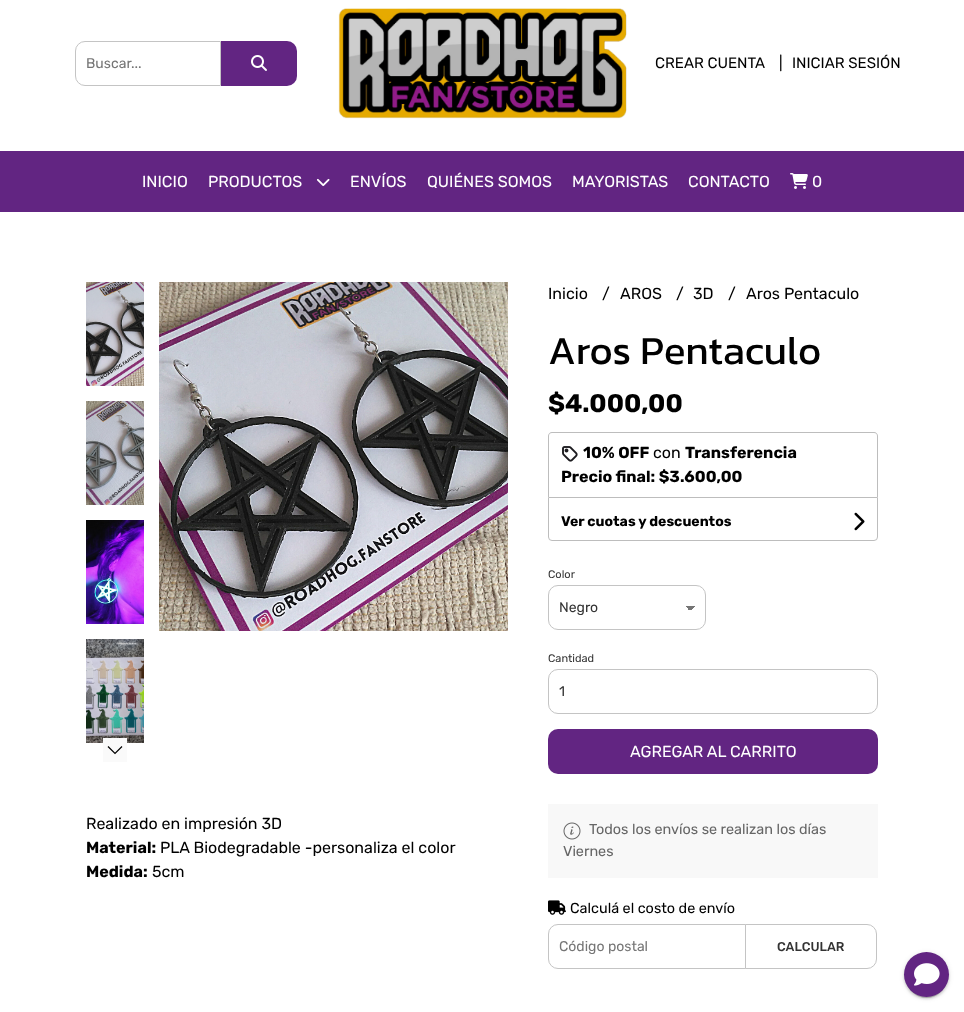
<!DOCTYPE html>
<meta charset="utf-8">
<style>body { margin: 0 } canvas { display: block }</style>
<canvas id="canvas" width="964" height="1012"></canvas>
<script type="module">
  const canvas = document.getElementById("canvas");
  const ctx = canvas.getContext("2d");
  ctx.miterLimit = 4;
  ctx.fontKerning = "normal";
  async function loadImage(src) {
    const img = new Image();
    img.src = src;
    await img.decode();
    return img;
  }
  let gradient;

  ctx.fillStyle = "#ffffff";
  ctx.fillRect(0, 0, 964, 1012);
  ctx.beginPath();
  ctx.roundRect(75.5, 41.5, 145, 44, [9.5, 0, 0, 9.5]);
  ctx.strokeStyle = "#c4c4c4";
  ctx.stroke();
  ctx.font = "14px Rubik";
  ctx.fillStyle = "#757575";
  ctx.fillText("Buscar...", 86, 68);
  ctx.fillStyle = "#622582";
  ctx.beginPath();
  ctx.roundRect(221, 41, 76, 45, [0, 10, 10, 0]);
  ctx.fill();
  ctx.drawImage(await loadImage("img1.png"), 251, 55, 16, 16);
  ctx.drawImage(await loadImage("img2.png"), 338, 8, 289, 111);
  ctx.font = "15px Rubik";
  ctx.fillStyle = "#000000";
  ctx.fillText("CREAR CUENTA", 655, 68);
  ctx.fillText("|", 779, 68);
  ctx.fillText("INICIAR SESIÓN", 792, 68);
  ctx.fillStyle = "#622582";
  ctx.fillRect(0, 151, 964, 61);
  ctx.font = "16px Rubik";
  ctx.fillStyle = "#ffffff";
  ctx.fillText("INICIO", 142, 187);
  ctx.fillText("PRODUCTOS", 208, 187);
  ctx.drawImage(await loadImage("img3.png"), 316, 178, 14, 9);
  ctx.fillText("ENVÍOS", 350, 187);
  ctx.fillText("QUIÉNES SOMOS", 427, 187);
  ctx.fillText("MAYORISTAS", 572, 187);
  ctx.fillText("CONTACTO", 688, 187);
  ctx.drawImage(await loadImage("img4.png"), 790, 173, 18, 16);
  ctx.fillText("0", 812, 187);
  ctx.drawImage(await loadImage("img5.png"), 86, 282, 58, 104);
  ctx.drawImage(await loadImage("img6.png"), 86, 401, 58, 104);
  ctx.drawImage(await loadImage("img7.png"), 86, 520, 58, 104);
  ctx.drawImage(await loadImage("img8.png"), 86, 639, 58, 104);
  ctx.fillStyle = "#fafafa";
  ctx.fillRect(103, 738, 24, 24);
  ctx.beginPath();
  ctx.moveTo(122, 746.5);
  ctx.lineTo(115, 753.5);
  ctx.lineTo(108, 746.5);
  ctx.strokeStyle = "#000000";
  ctx.lineWidth = 1.2;
  ctx.stroke();
  ctx.drawImage(await loadImage("img9.png"), 159, 282, 349, 349);
  ctx.fillStyle = "#000000";
  ctx.fillText("Realizado en impresión 3D", 86, 829);
  ctx.font = "bold 16px Rubik";
  ctx.fillText("Material:", 86, 853);
  ctx.font = "16px Rubik";
  ctx.fillText("PLA Biodegradable -personaliza el color", 160, 853);
  ctx.font = "bold 16px Rubik";
  ctx.fillText("Medida:", 86, 877);
  ctx.font = "16px Rubik";
  ctx.fillText("5cm", 152, 877);
  ctx.fillText("Inicio", 548, 299);
  ctx.fillText("/", 602, 299);
  ctx.fillText("AROS", 620, 299);
  ctx.fillText("/", 676, 299);
  ctx.fillText("3D", 693, 299);
  ctx.fillText("/", 728, 299);
  ctx.fillText("Aros Pentaculo", 746, 299);
  ctx.font = "40px Kanit";
  ctx.fillText("Aros Pentaculo", 548, 364);
  ctx.font = "bold 25.5px Rubik";
  ctx.fillText("$4.000,00", 548, 412);
  ctx.fillStyle = "#bdbdbd";
  ctx.beginPath();
  ctx.moveTo(552, 432);
  ctx.lineTo(874, 432);
  ctx.bezierCurveTo(876, 432, 878, 434, 878, 436);
  ctx.lineTo(878, 497);
  ctx.lineTo(548, 497);
  ctx.lineTo(548, 436);
  ctx.bezierCurveTo(548, 434, 550, 432, 552, 432);
  ctx.closePath();
  ctx.moveTo(552, 433);
  ctx.lineTo(874, 433);
  ctx.bezierCurveTo(876, 433, 877, 434, 877, 436);
  ctx.lineTo(877, 497);
  ctx.lineTo(549, 497);
  ctx.lineTo(549, 436);
  ctx.bezierCurveTo(549, 434, 550, 433, 552, 433);
  ctx.closePath();
  ctx.fill("evenodd");
  ctx.drawImage(await loadImage("img10.png"), 562, 446, 16, 16);
  ctx.font = "bold 16px Rubik";
  ctx.fillStyle = "#000000";
  ctx.fillText("10% OFF", 583, 458);
  ctx.font = "16px Rubik";
  ctx.fillText("con", 653, 458);
  ctx.font = "bold 16px Rubik";
  ctx.fillText("Transferencia", 685, 458);
  ctx.fillText("Precio final: $3.600,00", 561, 482);
  ctx.beginPath();
  ctx.roundRect(548.5, 497.5, 329, 43, [0, 0, 3.5, 3.5]);
  ctx.strokeStyle = "#bdbdbd";
  ctx.lineWidth = 1;
  ctx.stroke();
  ctx.font = "bold 14px Rubik";
  ctx.fillText("Ver cuotas y descuentos", 561, 526);
  ctx.drawImage(await loadImage("img11.png"), 854, 512, 11, 19);
  ctx.font = "11px Rubik";
  ctx.fillStyle = "#333333";
  ctx.fillText("Color", 548, 578);
  gradient = ctx.createLinearGradient(690, 606, 695, 611);
  gradient.addColorStop(0.5, "#757575");
  gradient.addColorStop(0.5, "#ffffff");
  ctx.fillStyle = gradient;
  ctx.fillRect(690, 606, 5, 4);
  gradient = ctx.createLinearGradient(685, 611, 690, 606);
  gradient.addColorStop(0.5, "#ffffff");
  gradient.addColorStop(0.5, "#757575");
  ctx.fillStyle = gradient;
  ctx.fillRect(685, 606, 5, 4);
  ctx.beginPath();
  ctx.roundRect(548.5, 585.5, 157, 44, 9.5);
  ctx.strokeStyle = "#c4c4c4";
  ctx.stroke();
  ctx.font = "14px Rubik";
  ctx.fillStyle = "#333333";
  ctx.fillText("Negro", 559, 612);
  ctx.font = "11px Rubik";
  ctx.fillText("Cantidad", 548, 662);
  ctx.beginPath();
  ctx.roundRect(548.5, 669.5, 329, 44, 9.5);
  ctx.stroke();
  ctx.font = "14px Rubik";
  ctx.fillText("1", 559, 696);
  ctx.fillStyle = "#622582";
  ctx.beginPath();
  ctx.roundRect(548, 729, 330, 45, 10);
  ctx.fill();
  ctx.font = "16px Rubik";
  ctx.fillStyle = "#ffffff";
  ctx.fillText("AGREGAR AL CARRITO", 630, 757);
  ctx.fillStyle = "#f8f8f8";
  ctx.fillRect(548, 804, 330, 74);
  ctx.drawImage(await loadImage("img12.png"), 563, 822, 18, 18);
  ctx.font = "14.4px Rubik";
  ctx.fillStyle = "#666666";
  ctx.fillText("Todos los envíos se realizan los días", 589, 834);
  ctx.fillText("Viernes", 563, 856);
  ctx.drawImage(await loadImage("img13.png"), 548, 900, 18, 15);
  ctx.fillStyle = "#000000";
  ctx.fillText("Calculá el costo de envío", 570, 913);
  ctx.beginPath();
  ctx.roundRect(548.5, 924.5, 197, 44, [9.5, 0, 0, 9.5]);
  ctx.stroke();
  ctx.font = "14px Rubik";
  ctx.fillStyle = "#757575";
  ctx.fillText("Código postal", 559, 951);
  ctx.fillStyle = "#ffffff";
  ctx.beginPath();
  ctx.roundRect(745.5, 924.5, 131, 44, [0, 9.5, 9.5, 0]);
  ctx.fill();
  ctx.stroke();
  ctx.font = "500 12.75px Rubik";
  ctx.fillStyle = "#333333";
  ctx.fillText("CALCULAR", 777, 951);
  ctx.fillStyle = "rgba(0, 0, 0, 0.2)";
  ctx.filter = "blur(0.5px)";
  ctx.beginPath();
  ctx.roundRect(906, 957, 41, 41, 20.5);
  ctx.fill();
  ctx.filter = "none";
  ctx.fillStyle = "rgba(0, 0, 0, 0.12)";
  ctx.filter = "blur(2.5px)";
  ctx.beginPath();
  ctx.roundRect(904, 953, 45, 45, 22.5);
  ctx.fill();
  ctx.filter = "none";
  ctx.fillStyle = "rgba(0, 0, 0, 0.14)";
  ctx.filter = "blur(1px)";
  ctx.beginPath();
  ctx.roundRect(904, 954, 45, 45, 22.5);
  ctx.fill();
  ctx.filter = "none";
  ctx.fillStyle = "#622582";
  ctx.beginPath();
  ctx.arc(926.5, 974.5, 22.5, 0, Math.PI * 2);
  ctx.fill();
  ctx.drawImage(await loadImage("img14.png"), 914, 963, 26, 23);
</script>
